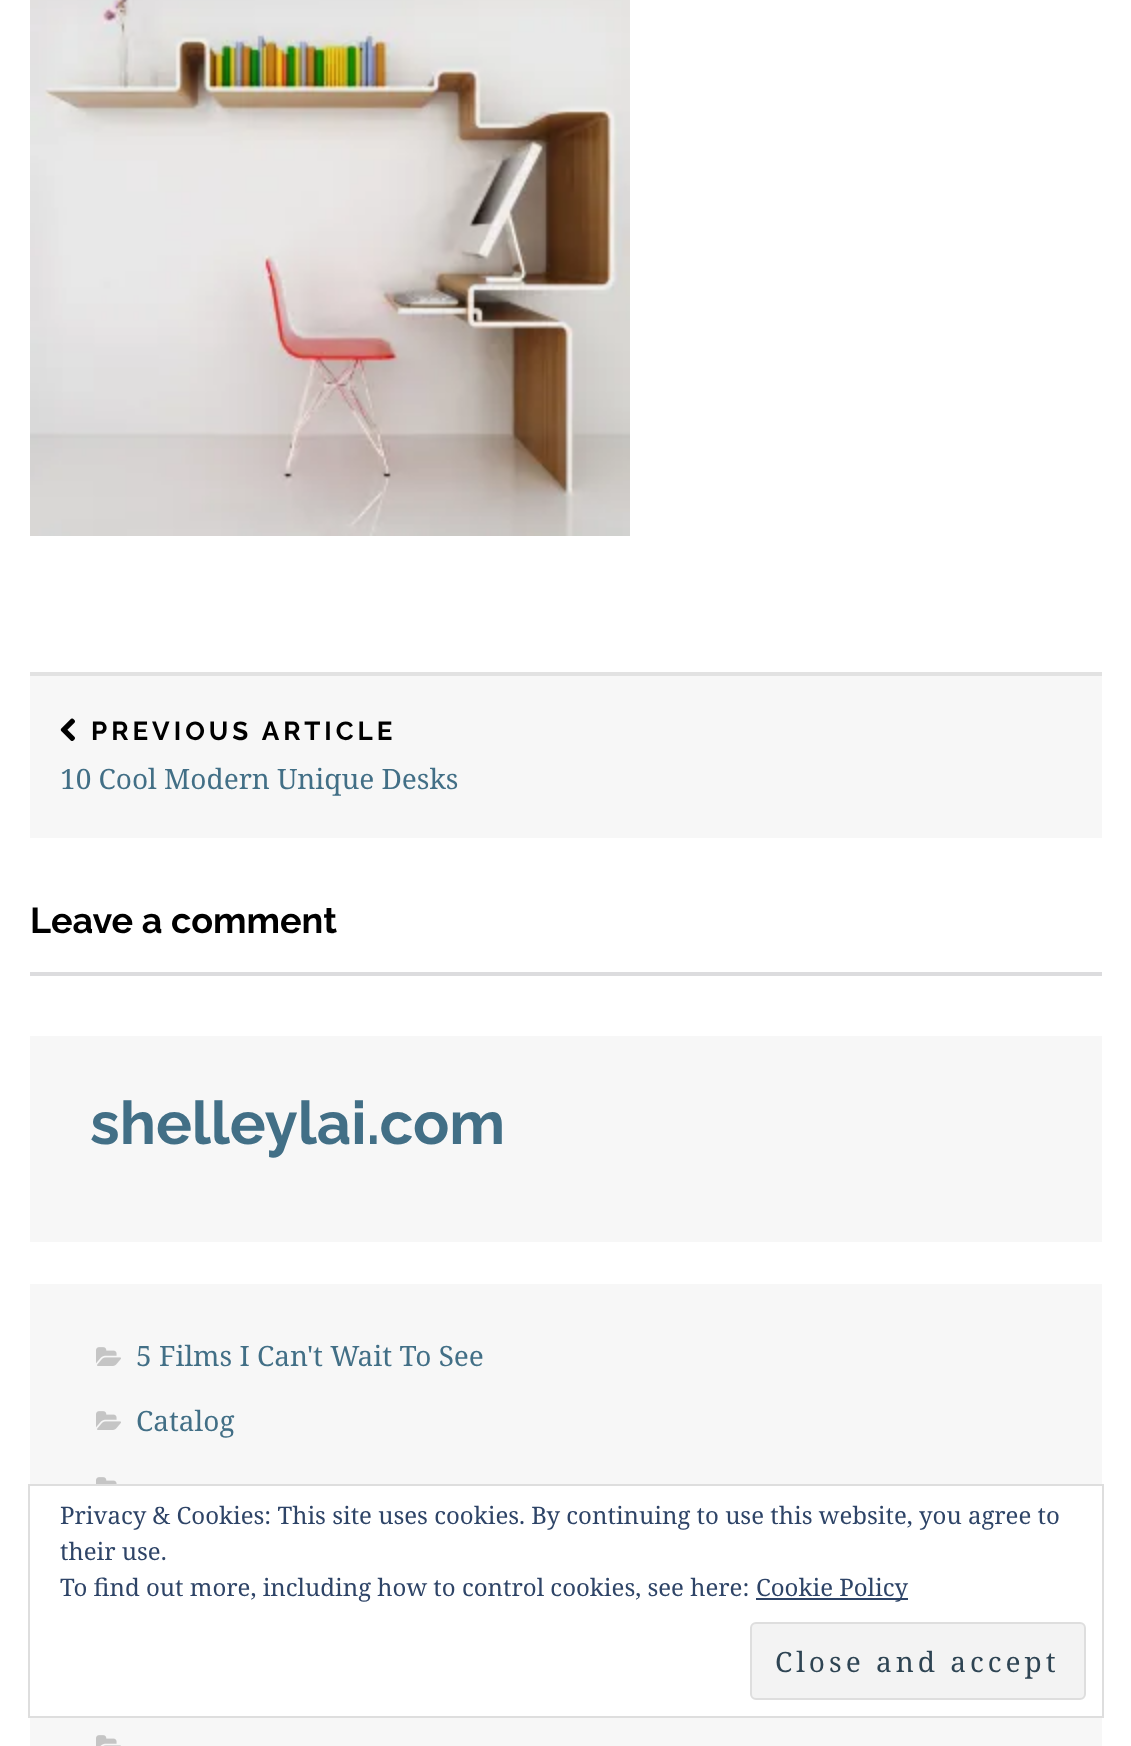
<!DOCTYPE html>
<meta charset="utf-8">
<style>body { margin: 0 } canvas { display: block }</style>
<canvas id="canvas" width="1131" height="1746"></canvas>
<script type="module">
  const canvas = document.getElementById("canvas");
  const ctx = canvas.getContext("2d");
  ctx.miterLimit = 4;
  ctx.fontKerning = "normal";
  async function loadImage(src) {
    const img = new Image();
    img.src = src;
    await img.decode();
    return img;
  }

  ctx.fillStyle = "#ffffff";
  ctx.fillRect(0, 0, 1131, 1746);
  ctx.fillStyle = "#e2e2e2";
  ctx.fillRect(30, 672, 1072, 4);
  ctx.drawImage(await loadImage("img1.png"), 30, 0, 600, 536);
  ctx.fillStyle = "#f7f7f7";
  ctx.fillRect(30, 676, 1072, 162);
  ctx.drawImage(await loadImage("img2.png"), 60, 718, 15, 23);
  ctx.letterSpacing = "4px";
  ctx.font = "bold 26px Raleway";
  ctx.fillStyle = "#000000";
  ctx.fillText("PREVIOUS ARTICLE", 91, 740);
  ctx.letterSpacing = "0px";
  ctx.font = "28px Noto Serif";
  ctx.fillStyle = "#426f86";
  ctx.fillText("10 Cool Modern Unique Desks", 60, 789);
  ctx.font = "bold 36px Raleway";
  ctx.fillStyle = "#000000";
  ctx.fillText("Leave a comment", 30, 933);
  ctx.fillStyle = "#dcdcde";
  ctx.fillRect(30, 972, 1072, 4);
  ctx.fillStyle = "#f7f7f7";
  ctx.fillRect(30, 1036, 1072, 206);
  ctx.font = "bold 60px Raleway";
  ctx.fillStyle = "#426f86";
  ctx.fillText("shelleylai.com", 90, 1144);
  ctx.fillStyle = "#f7f7f7";
  ctx.fillRect(30, 1284, 1072, 462);
  ctx.drawImage(await loadImage("img3.png"), 96, 1347, 25, 19);
  ctx.font = "28px Noto Serif";
  ctx.fillStyle = "#426f86";
  ctx.fillText("5 Films I Can't Wait To See", 136, 1366);
  ctx.drawImage(await loadImage("img3.png"), 96, 1411, 25, 19);
  ctx.fillText("Catalog", 136, 1431);
  ctx.drawImage(await loadImage("img4.png"), 96, 1477, 21, 7);
  ctx.drawImage(await loadImage("img5.png"), 96, 1735, 25, 11);
  ctx.fillStyle = "#ffffff";
  ctx.beginPath();
  ctx.rect(29, 1485, 1074, 232);
  ctx.fill();
  ctx.strokeStyle = "#dedede";
  ctx.lineWidth = 2;
  ctx.stroke();
  ctx.font = "24px Noto Serif";
  ctx.fillStyle = "#2e4467";
  ctx.fillText("Privacy & Cookies: This site uses cookies. By continuing to use this website, you agree to", 60, 1524);
  ctx.fillText("their use.", 60, 1560);
  ctx.fillText("To find out more, including how to control cookies, see here:", 60, 1596);
  ctx.fillRect(756, 1598, 152, 2);
  ctx.fillText("Cookie Policy", 756, 1596);
  ctx.fillStyle = "#f3f3f3";
  ctx.beginPath();
  ctx.roundRect(751, 1623, 334, 76, 5);
  ctx.fill();
  ctx.stroke();
  ctx.letterSpacing = "4px";
  ctx.font = "28px Noto Serif";
  ctx.fillStyle = "#2e4453";
  ctx.fillText("Close and accept", 775, 1672);
</script>
